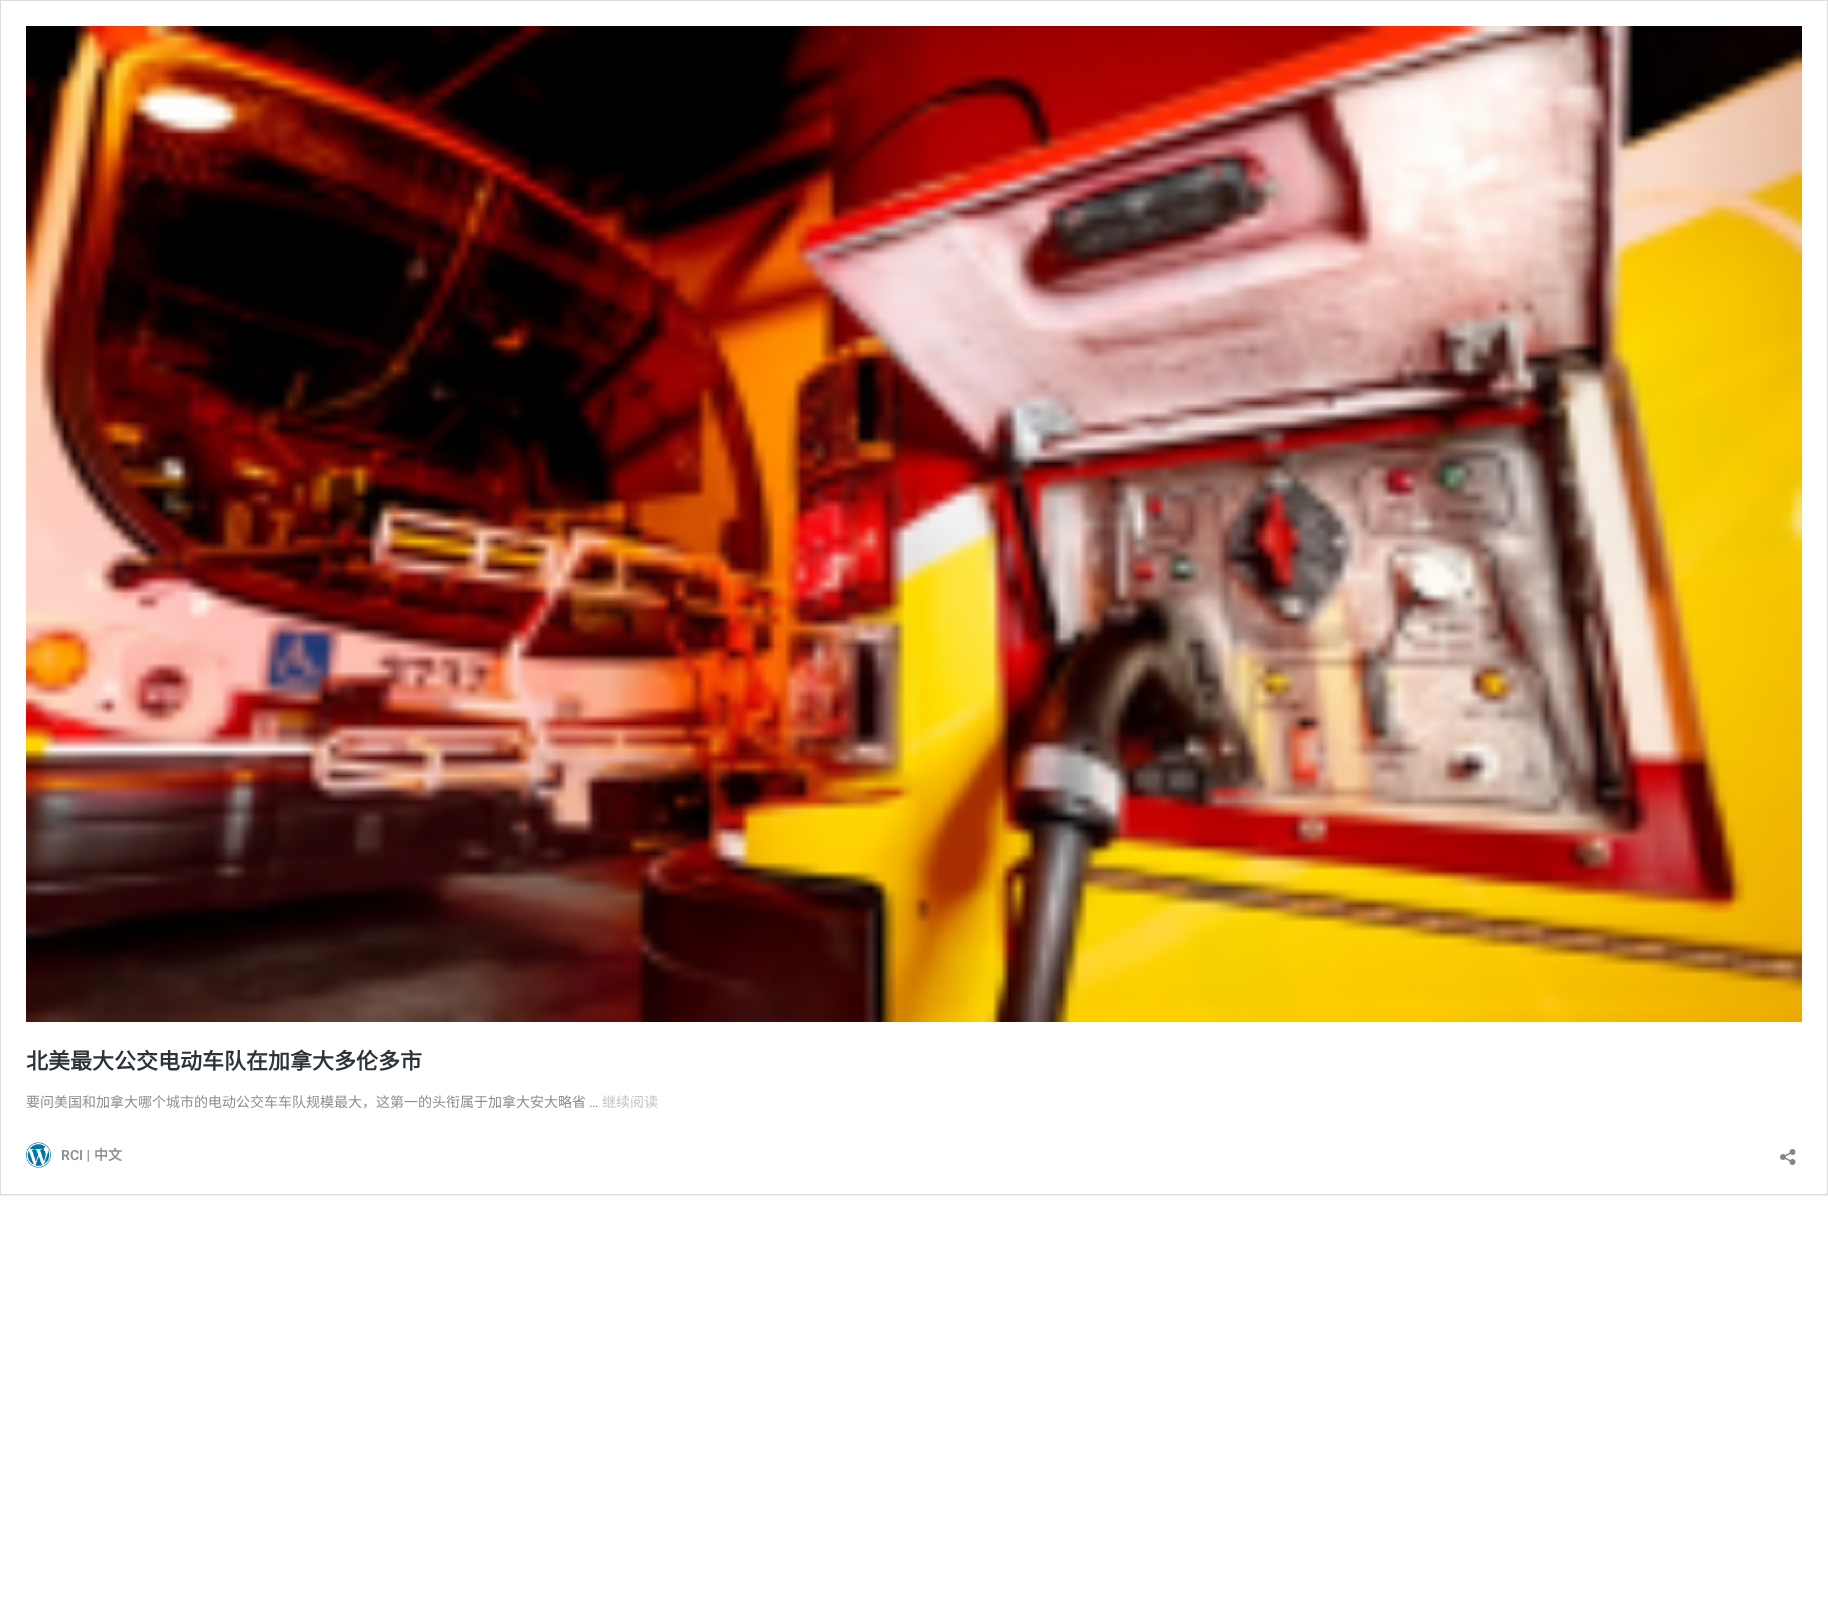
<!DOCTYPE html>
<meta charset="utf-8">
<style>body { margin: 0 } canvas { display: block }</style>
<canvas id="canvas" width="1828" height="1597"></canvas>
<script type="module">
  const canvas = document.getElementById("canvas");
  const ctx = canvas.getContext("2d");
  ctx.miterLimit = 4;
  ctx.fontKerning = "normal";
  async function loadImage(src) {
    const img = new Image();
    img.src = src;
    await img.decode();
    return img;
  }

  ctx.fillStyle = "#ffffff";
  ctx.fillRect(0, 0, 1828, 1597);
  ctx.save();
  ctx.beginPath();
  ctx.rect(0, 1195, 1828, 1);
  ctx.clip();
  ctx.fillStyle = "rgba(0, 0, 0, 0.05)";
  ctx.filter = "blur(0.5px)";
  ctx.beginPath();
  ctx.rect(0, 1, 1828, 1195);
  ctx.fill();
  ctx.filter = "none";
  ctx.restore();
  ctx.strokeStyle = "#dcdcde";
  ctx.strokeRect(0.5, 0.5, 1827, 1194);
  ctx.drawImage(await loadImage("img1.png"), 26, 26, 1776, 996);
  ctx.font = "bold 22px Noto Sans CJK SC";
  ctx.fillStyle = "#2c3338";
  ctx.fillText("北美最大公交电动车队在加拿大多伦多市", 26, 1069);
  ctx.font = "14px Noto Sans CJK SC";
  ctx.fillStyle = "#8c8f94";
  ctx.fillText("要问美国和加拿大哪个城市的电动公交车车队规模最大，这第一的头衔属于加拿大安大略省", 26, 1107);
  ctx.font = "14px Roboto";
  ctx.fillText("…", 589, 1107);
  ctx.font = "14px Noto Sans CJK SC";
  ctx.fillStyle = "#c3c4c7";
  ctx.fillText("继续阅读", 602, 1107);
  ctx.drawImage(await loadImage("img2.png"), 26, 1142, 25, 26);
  ctx.font = "600 14px Roboto";
  ctx.fillStyle = "#8c8f94";
  ctx.fillText("RCI |", 61, 1160);
  ctx.font = "bold 14px Noto Sans CJK SC";
  ctx.fillText("中文", 94, 1160);
  ctx.drawImage(await loadImage("img3.png"), 1780, 1149, 16, 16);
</script>
